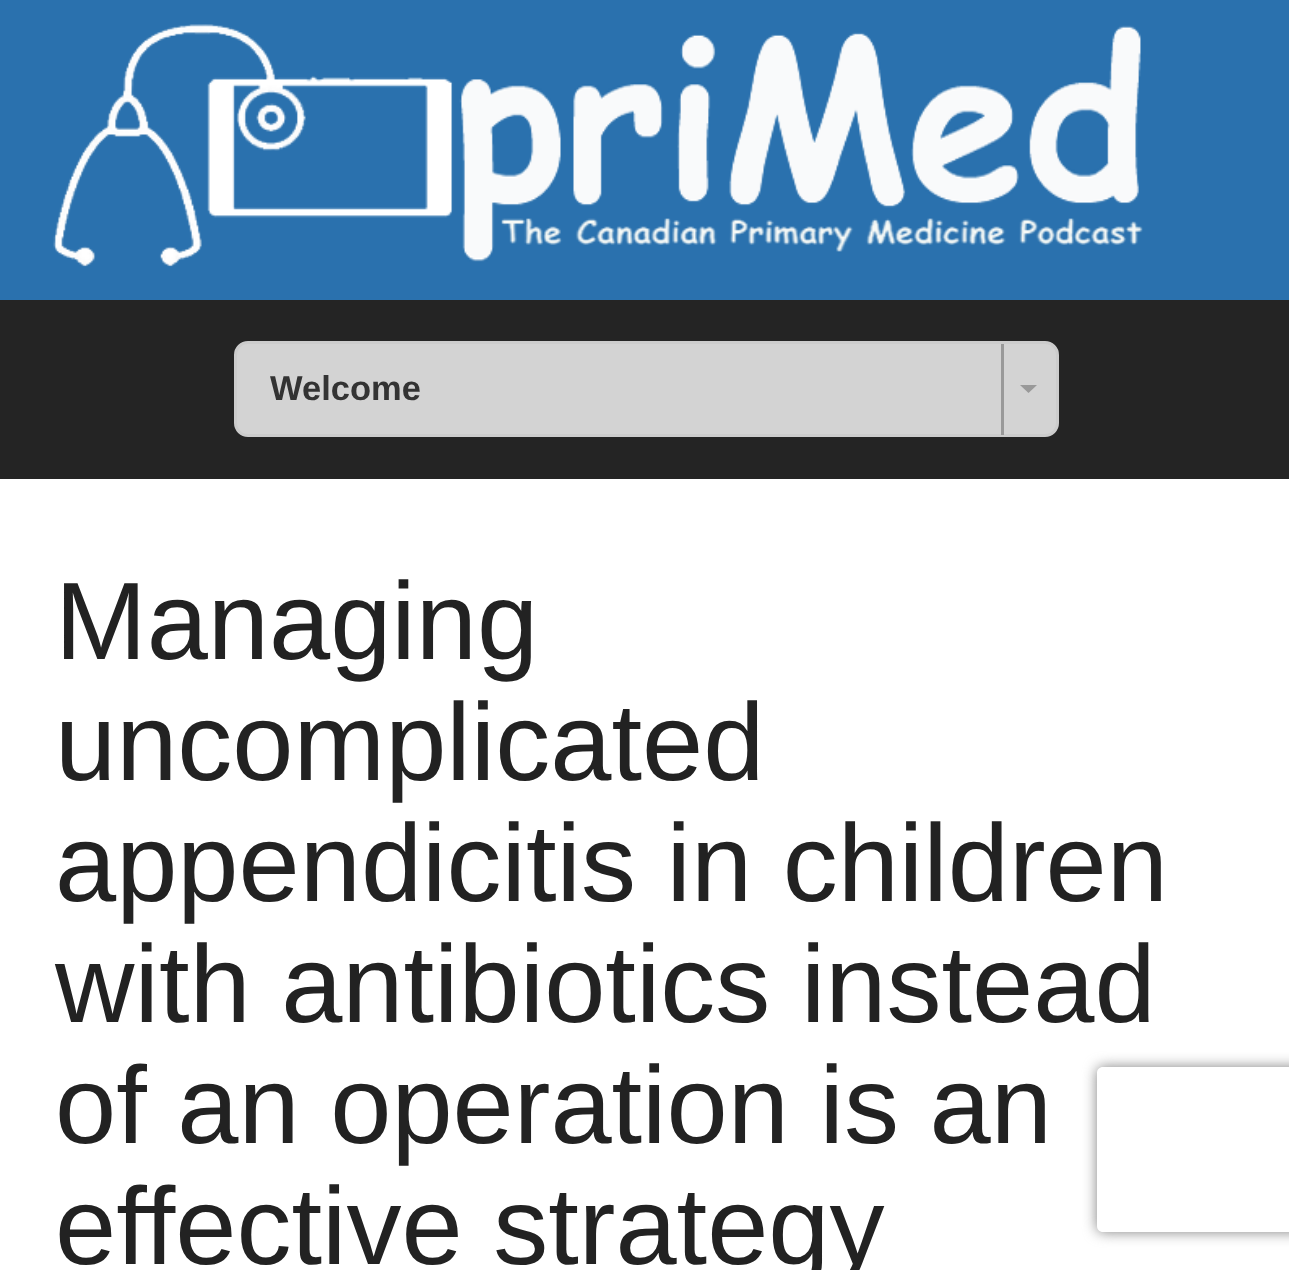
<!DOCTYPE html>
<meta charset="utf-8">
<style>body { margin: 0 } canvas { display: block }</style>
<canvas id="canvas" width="1289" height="1270"></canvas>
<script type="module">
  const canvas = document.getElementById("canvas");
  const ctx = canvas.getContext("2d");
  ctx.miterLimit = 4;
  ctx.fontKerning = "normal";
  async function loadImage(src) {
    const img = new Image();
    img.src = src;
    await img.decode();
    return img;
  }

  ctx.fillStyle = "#ffffff";
  ctx.fillRect(0, 0, 1289, 1270);
  ctx.fillStyle = "#2a71ae";
  ctx.fillRect(0, 0, 1289, 300);
  ctx.drawImage(await loadImage("img1.png"), 53, 24, 1090, 243);
  ctx.fillStyle = "#242424";
  ctx.fillRect(0, 300, 1289, 179);
  ctx.fillStyle = "#d3d3d3";
  ctx.beginPath();
  ctx.roundRect(235.5, 342.5, 822, 93, 12.5);
  ctx.fill();
  ctx.strokeStyle = "#cccccc";
  ctx.lineWidth = 3;
  ctx.stroke();
  ctx.font = "bold 34.5px Liberation Sans";
  ctx.fillStyle = "#333333";
  ctx.fillText("Welcome", 270, 400);
  ctx.fillStyle = "#999999";
  ctx.fillRect(1001, 344, 3, 91);
  ctx.beginPath();
  ctx.moveTo(1020, 385);
  ctx.lineTo(1037, 385);
  ctx.lineTo(1028.5, 393);
  ctx.closePath();
  ctx.fill();
  ctx.font = "110px Liberation Sans";
  ctx.fillStyle = "#222222";
  ctx.fillText("Managing", 55, 659);
  ctx.fillText("uncomplicated", 55, 780);
  ctx.fillText("appendicitis in children", 55, 901);
  ctx.fillText("with antibiotics instead", 55, 1022);
  ctx.fillText("of an operation is an", 55, 1143);
  ctx.fillText("effective strategy", 55, 1264);
  ctx.save();
  ctx.beginPath();
  ctx.moveTo(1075, 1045);
  ctx.lineTo(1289, 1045);
  ctx.lineTo(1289, 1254);
  ctx.lineTo(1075, 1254);
  ctx.closePath();
  ctx.moveTo(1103, 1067);
  ctx.lineTo(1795, 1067);
  ctx.bezierCurveTo(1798.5, 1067, 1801, 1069.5, 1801, 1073);
  ctx.lineTo(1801, 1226);
  ctx.bezierCurveTo(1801, 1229.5, 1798.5, 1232, 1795, 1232);
  ctx.lineTo(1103, 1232);
  ctx.bezierCurveTo(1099.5, 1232, 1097, 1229.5, 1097, 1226);
  ctx.lineTo(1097, 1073);
  ctx.bezierCurveTo(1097, 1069.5, 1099.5, 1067, 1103, 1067);
  ctx.closePath();
  ctx.clip("evenodd");
  ctx.fillStyle = "#808080";
  ctx.filter = "blur(7px)";
  ctx.beginPath();
  ctx.roundRect(1097, 1067, 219, 165, 6);
  ctx.fill();
  ctx.filter = "none";
  ctx.restore();
</script>
